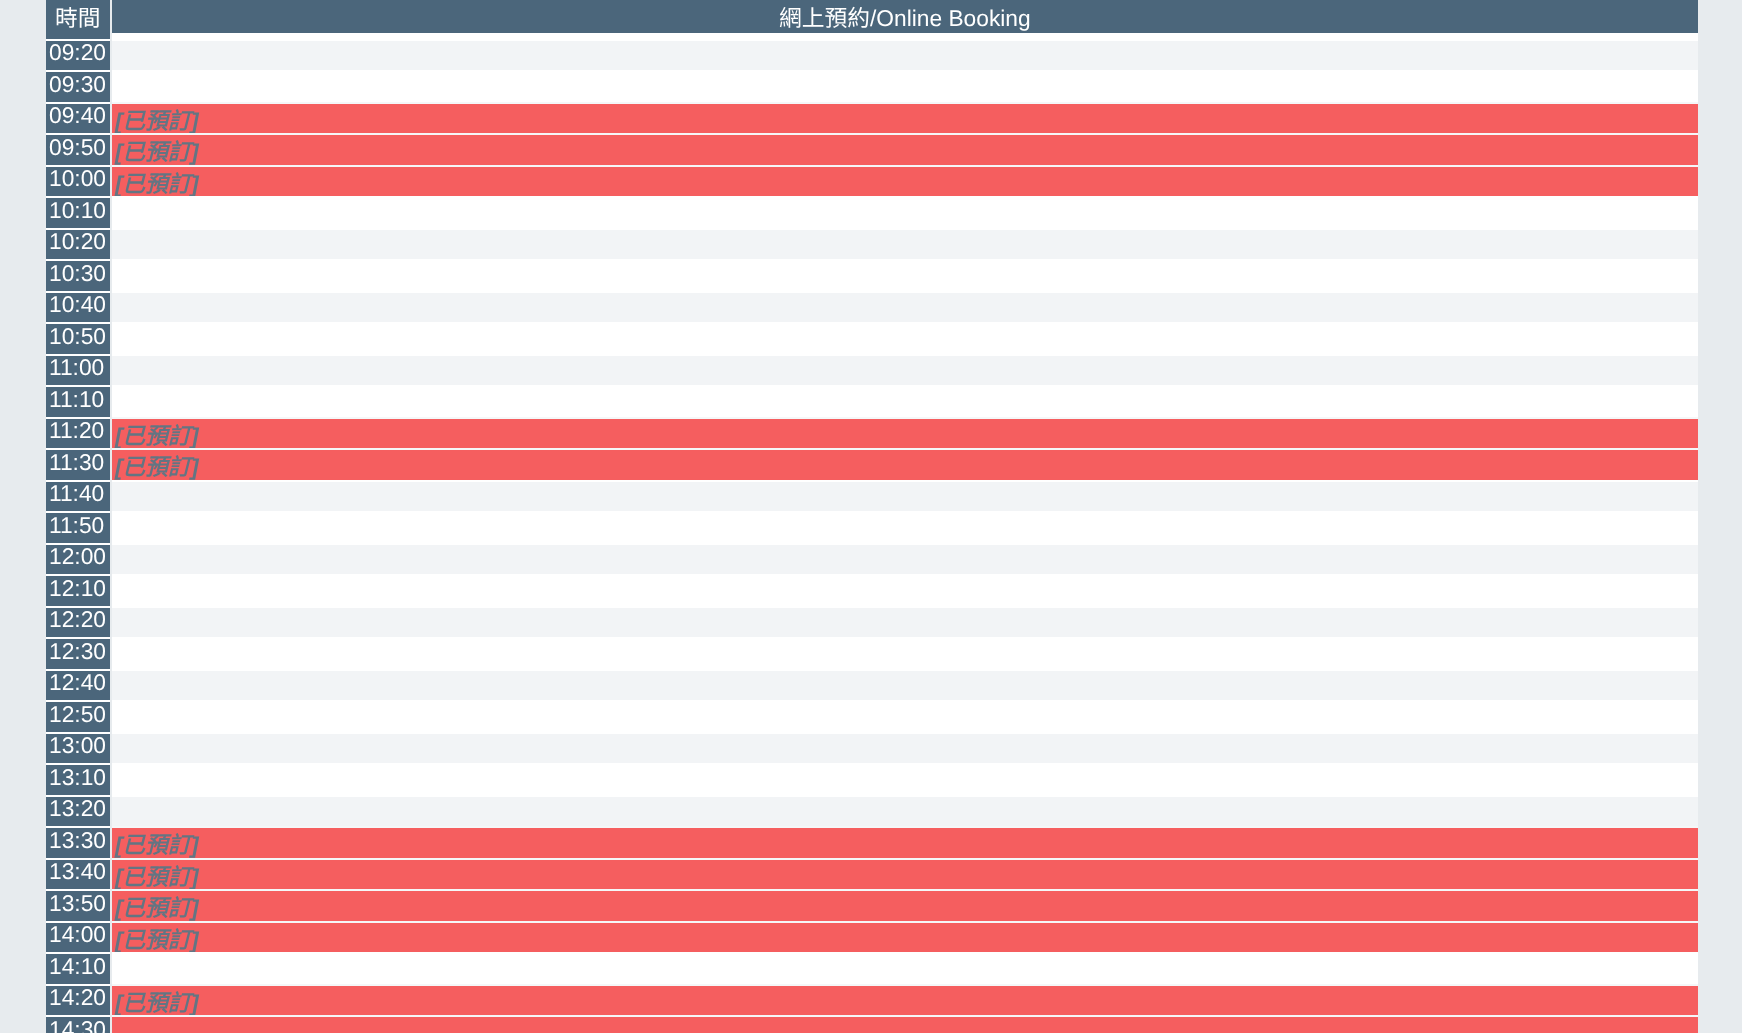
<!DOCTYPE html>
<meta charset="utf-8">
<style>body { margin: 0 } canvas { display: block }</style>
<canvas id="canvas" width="1742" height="1033"></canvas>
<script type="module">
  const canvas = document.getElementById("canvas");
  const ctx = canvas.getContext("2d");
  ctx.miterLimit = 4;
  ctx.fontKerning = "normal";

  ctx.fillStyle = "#e7ebee";
  ctx.fillRect(0, 0, 1742, 1033);
  ctx.fillStyle = "#4b667b";
  ctx.fillRect(46, 0, 64, 39);
  ctx.font = "22.75px Noto Sans CJK TC";
  ctx.fillStyle = "#ffffff";
  ctx.fillText("時間", 55, 26);
  ctx.fillStyle = "#4b667b";
  ctx.fillRect(112, 0, 1586, 33);
  ctx.fillStyle = "#ffffff";
  ctx.fillText("網上預約", 779, 26);
  ctx.font = "22.75px Liberation Sans";
  ctx.fillText("/Online Booking", 870, 26);
  ctx.fillRect(112, 33, 1586, 6);
  ctx.fillStyle = "#4b667b";
  ctx.fillRect(46, 41, 64, 29);
  ctx.fillStyle = "#ffffff";
  ctx.fillRect(46, 39, 1652, 2);
  ctx.fillText("09:20", 49, 60);
  ctx.fillStyle = "#f2f4f6";
  ctx.fillRect(112, 41, 1586, 29);
  ctx.fillStyle = "#e7ebee";
  ctx.fillRect(110, 39, 2, 2);
  ctx.fillStyle = "#4b667b";
  ctx.fillRect(46, 72, 64, 30);
  ctx.fillStyle = "#ffffff";
  ctx.fillRect(46, 70, 64, 2);
  ctx.fillText("09:30", 49, 92);
  ctx.fillRect(112, 70, 1586, 32);
  ctx.fillStyle = "#4b667b";
  ctx.fillRect(46, 104, 64, 29);
  ctx.fillStyle = "#ffffff";
  ctx.fillRect(46, 102, 64, 2);
  ctx.fillText("09:40", 49, 123);
  ctx.fillStyle = "#f55e5f";
  ctx.fillRect(112, 104, 1586, 29);
  ctx.fillStyle = "#f5f7f8";
  ctx.fillRect(110, 102, 1588, 2);
  ctx.fillStyle = "#e7ebee";
  ctx.fillRect(110, 102, 2, 2);
  ctx.font = "italic bold 22.75px Liberation Sans";
  ctx.fillStyle = "#637583";
  ctx.fillText("[", 115, 129);
  ctx.font = "italic bold 22.75px Noto Sans CJK TC";
  ctx.fillText("已預訂", 122, 129);
  ctx.font = "italic bold 22.75px Liberation Sans";
  ctx.fillText("]", 191, 129);
  ctx.fillStyle = "#4b667b";
  ctx.fillRect(46, 135, 64, 30);
  ctx.fillStyle = "#ffffff";
  ctx.fillRect(46, 133, 64, 2);
  ctx.font = "22.75px Liberation Sans";
  ctx.fillText("09:50", 49, 155);
  ctx.fillStyle = "#f55e5f";
  ctx.fillRect(112, 135, 1586, 30);
  ctx.fillStyle = "#f5f7f8";
  ctx.fillRect(110, 133, 1588, 2);
  ctx.fillStyle = "#e7ebee";
  ctx.fillRect(110, 133, 2, 2);
  ctx.font = "italic bold 22.75px Liberation Sans";
  ctx.fillStyle = "#637583";
  ctx.fillText("[", 115, 160);
  ctx.font = "italic bold 22.75px Noto Sans CJK TC";
  ctx.fillText("已預訂", 122, 160);
  ctx.font = "italic bold 22.75px Liberation Sans";
  ctx.fillText("]", 191, 160);
  ctx.fillStyle = "#4b667b";
  ctx.fillRect(46, 167, 64, 29);
  ctx.fillStyle = "#ffffff";
  ctx.fillRect(46, 165, 64, 2);
  ctx.font = "22.75px Liberation Sans";
  ctx.fillText("10:00", 49, 186);
  ctx.fillStyle = "#f55e5f";
  ctx.fillRect(112, 167, 1586, 29);
  ctx.fillStyle = "#f5f7f8";
  ctx.fillRect(110, 165, 1588, 2);
  ctx.fillStyle = "#e7ebee";
  ctx.fillRect(110, 165, 2, 2);
  ctx.save();
  ctx.beginPath();
  ctx.rect(112, 166, 1586, 30);
  ctx.clip();
  ctx.font = "italic bold 22.75px Liberation Sans";
  ctx.fillStyle = "#637583";
  ctx.fillText("[", 115, 192);
  ctx.restore();
  ctx.font = "italic bold 22.75px Noto Sans CJK TC";
  ctx.fillStyle = "#637583";
  ctx.fillText("已預訂", 122, 192);
  ctx.save();
  ctx.beginPath();
  ctx.rect(112, 166, 1586, 30);
  ctx.clip();
  ctx.font = "italic bold 22.75px Liberation Sans";
  ctx.fillText("]", 191, 192);
  ctx.restore();
  ctx.fillStyle = "#4b667b";
  ctx.fillRect(46, 198, 64, 30);
  ctx.fillStyle = "#ffffff";
  ctx.fillRect(46, 196, 64, 2);
  ctx.font = "22.75px Liberation Sans";
  ctx.fillText("10:10", 49, 218);
  ctx.fillRect(112, 196, 1586, 32);
  ctx.fillStyle = "#4b667b";
  ctx.fillRect(46, 230, 64, 29);
  ctx.fillStyle = "#ffffff";
  ctx.fillRect(46, 228, 1652, 2);
  ctx.fillText("10:20", 49, 249);
  ctx.fillStyle = "#f2f4f6";
  ctx.fillRect(112, 230, 1586, 29);
  ctx.fillStyle = "#e7ebee";
  ctx.fillRect(110, 228, 2, 2);
  ctx.fillStyle = "#4b667b";
  ctx.fillRect(46, 261, 64, 30);
  ctx.fillStyle = "#ffffff";
  ctx.fillRect(46, 259, 64, 2);
  ctx.fillText("10:30", 49, 281);
  ctx.fillRect(112, 259, 1586, 32);
  ctx.fillStyle = "#4b667b";
  ctx.fillRect(46, 293, 64, 29);
  ctx.fillStyle = "#ffffff";
  ctx.fillRect(46, 291, 1652, 2);
  ctx.fillText("10:40", 49, 312);
  ctx.fillStyle = "#f2f4f6";
  ctx.fillRect(112, 293, 1586, 29);
  ctx.fillStyle = "#e7ebee";
  ctx.fillRect(110, 291, 2, 2);
  ctx.fillStyle = "#4b667b";
  ctx.fillRect(46, 324, 64, 30);
  ctx.fillStyle = "#ffffff";
  ctx.fillRect(46, 322, 64, 2);
  ctx.fillText("10:50", 49, 344);
  ctx.fillRect(112, 322, 1586, 32);
  ctx.fillStyle = "#4b667b";
  ctx.fillRect(46, 356, 64, 29);
  ctx.fillStyle = "#ffffff";
  ctx.fillRect(46, 354, 1652, 2);
  ctx.fillText("11:00", 49, 375);
  ctx.fillStyle = "#f2f4f6";
  ctx.fillRect(112, 356, 1586, 29);
  ctx.fillStyle = "#e7ebee";
  ctx.fillRect(110, 354, 2, 2);
  ctx.fillStyle = "#4b667b";
  ctx.fillRect(46, 387, 64, 30);
  ctx.fillStyle = "#ffffff";
  ctx.fillRect(46, 385, 64, 2);
  ctx.fillText("11:10", 49, 407);
  ctx.fillRect(112, 385, 1586, 32);
  ctx.fillStyle = "#4b667b";
  ctx.fillRect(46, 419, 64, 29);
  ctx.fillStyle = "#ffffff";
  ctx.fillRect(46, 417, 64, 2);
  ctx.fillText("11:20", 49, 438);
  ctx.fillStyle = "#f55e5f";
  ctx.fillRect(112, 419, 1586, 29);
  ctx.fillStyle = "#f5f7f8";
  ctx.fillRect(110, 417, 1588, 2);
  ctx.fillStyle = "#e7ebee";
  ctx.fillRect(110, 417, 2, 2);
  ctx.font = "italic bold 22.75px Liberation Sans";
  ctx.fillStyle = "#637583";
  ctx.fillText("[", 115, 444);
  ctx.font = "italic bold 22.75px Noto Sans CJK TC";
  ctx.fillText("已預訂", 122, 444);
  ctx.font = "italic bold 22.75px Liberation Sans";
  ctx.fillText("]", 191, 444);
  ctx.fillStyle = "#4b667b";
  ctx.fillRect(46, 450, 64, 30);
  ctx.fillStyle = "#ffffff";
  ctx.fillRect(46, 448, 64, 2);
  ctx.font = "22.75px Liberation Sans";
  ctx.fillText("11:30", 49, 470);
  ctx.fillStyle = "#f55e5f";
  ctx.fillRect(112, 450, 1586, 30);
  ctx.fillStyle = "#f5f7f8";
  ctx.fillRect(110, 448, 1588, 2);
  ctx.fillStyle = "#e7ebee";
  ctx.fillRect(110, 448, 2, 2);
  ctx.font = "italic bold 22.75px Liberation Sans";
  ctx.fillStyle = "#637583";
  ctx.fillText("[", 115, 475);
  ctx.font = "italic bold 22.75px Noto Sans CJK TC";
  ctx.fillText("已預訂", 122, 475);
  ctx.font = "italic bold 22.75px Liberation Sans";
  ctx.fillText("]", 191, 475);
  ctx.fillStyle = "#4b667b";
  ctx.fillRect(46, 482, 64, 29);
  ctx.fillStyle = "#ffffff";
  ctx.fillRect(46, 480, 1652, 2);
  ctx.font = "22.75px Liberation Sans";
  ctx.fillText("11:40", 49, 501);
  ctx.fillStyle = "#f2f4f6";
  ctx.fillRect(112, 482, 1586, 29);
  ctx.fillStyle = "#e7ebee";
  ctx.fillRect(110, 480, 2, 2);
  ctx.fillStyle = "#4b667b";
  ctx.fillRect(46, 513, 64, 30);
  ctx.fillStyle = "#ffffff";
  ctx.fillRect(46, 511, 64, 2);
  ctx.fillText("11:50", 49, 533);
  ctx.fillRect(112, 511, 1586, 32);
  ctx.fillStyle = "#4b667b";
  ctx.fillRect(46, 545, 64, 29);
  ctx.fillStyle = "#ffffff";
  ctx.fillRect(46, 543, 1652, 2);
  ctx.fillText("12:00", 49, 564);
  ctx.fillStyle = "#f2f4f6";
  ctx.fillRect(112, 545, 1586, 29);
  ctx.fillStyle = "#e7ebee";
  ctx.fillRect(110, 543, 2, 2);
  ctx.fillStyle = "#4b667b";
  ctx.fillRect(46, 576, 64, 30);
  ctx.fillStyle = "#ffffff";
  ctx.fillRect(46, 574, 64, 2);
  ctx.fillText("12:10", 49, 596);
  ctx.fillRect(112, 574, 1586, 32);
  ctx.fillStyle = "#4b667b";
  ctx.fillRect(46, 608, 64, 29);
  ctx.fillStyle = "#ffffff";
  ctx.fillRect(46, 606, 1652, 2);
  ctx.fillText("12:20", 49, 627);
  ctx.fillStyle = "#f2f4f6";
  ctx.fillRect(112, 608, 1586, 29);
  ctx.fillStyle = "#e7ebee";
  ctx.fillRect(110, 606, 2, 2);
  ctx.fillStyle = "#4b667b";
  ctx.fillRect(46, 639, 64, 30);
  ctx.fillStyle = "#ffffff";
  ctx.fillRect(46, 637, 64, 2);
  ctx.fillText("12:30", 49, 659);
  ctx.fillRect(112, 637, 1586, 32);
  ctx.fillStyle = "#4b667b";
  ctx.fillRect(46, 671, 64, 29);
  ctx.fillStyle = "#ffffff";
  ctx.fillRect(46, 669, 1652, 2);
  ctx.fillText("12:40", 49, 690);
  ctx.fillStyle = "#f2f4f6";
  ctx.fillRect(112, 671, 1586, 29);
  ctx.fillStyle = "#e7ebee";
  ctx.fillRect(110, 669, 2, 2);
  ctx.fillStyle = "#4b667b";
  ctx.fillRect(46, 702, 64, 30);
  ctx.fillStyle = "#ffffff";
  ctx.fillRect(46, 700, 64, 2);
  ctx.fillText("12:50", 49, 722);
  ctx.fillRect(112, 700, 1586, 32);
  ctx.fillStyle = "#4b667b";
  ctx.fillRect(46, 734, 64, 29);
  ctx.fillStyle = "#ffffff";
  ctx.fillRect(46, 732, 1652, 2);
  ctx.fillText("13:00", 49, 753);
  ctx.fillStyle = "#f2f4f6";
  ctx.fillRect(112, 734, 1586, 29);
  ctx.fillStyle = "#e7ebee";
  ctx.fillRect(110, 732, 2, 2);
  ctx.fillStyle = "#4b667b";
  ctx.fillRect(46, 765, 64, 30);
  ctx.fillStyle = "#ffffff";
  ctx.fillRect(46, 763, 64, 2);
  ctx.fillText("13:10", 49, 785);
  ctx.fillRect(112, 763, 1586, 32);
  ctx.fillStyle = "#4b667b";
  ctx.fillRect(46, 797, 64, 29);
  ctx.fillStyle = "#ffffff";
  ctx.fillRect(46, 795, 1652, 2);
  ctx.fillText("13:20", 49, 816);
  ctx.fillStyle = "#f2f4f6";
  ctx.fillRect(112, 797, 1586, 29);
  ctx.fillStyle = "#e7ebee";
  ctx.fillRect(110, 795, 2, 2);
  ctx.fillStyle = "#4b667b";
  ctx.fillRect(46, 828, 64, 30);
  ctx.fillStyle = "#ffffff";
  ctx.fillRect(46, 826, 64, 2);
  ctx.fillText("13:30", 49, 848);
  ctx.fillStyle = "#f55e5f";
  ctx.fillRect(112, 828, 1586, 30);
  ctx.fillStyle = "#f5f7f8";
  ctx.fillRect(110, 826, 1588, 2);
  ctx.fillStyle = "#e7ebee";
  ctx.fillRect(110, 826, 2, 2);
  ctx.font = "italic bold 22.75px Liberation Sans";
  ctx.fillStyle = "#637583";
  ctx.fillText("[", 115, 853);
  ctx.font = "italic bold 22.75px Noto Sans CJK TC";
  ctx.fillText("已預訂", 122, 853);
  ctx.font = "italic bold 22.75px Liberation Sans";
  ctx.fillText("]", 191, 853);
  ctx.fillStyle = "#4b667b";
  ctx.fillRect(46, 860, 64, 29);
  ctx.fillStyle = "#ffffff";
  ctx.fillRect(46, 858, 64, 2);
  ctx.font = "22.75px Liberation Sans";
  ctx.fillText("13:40", 49, 879);
  ctx.fillStyle = "#f55e5f";
  ctx.fillRect(112, 860, 1586, 29);
  ctx.fillStyle = "#f5f7f8";
  ctx.fillRect(110, 858, 1588, 2);
  ctx.fillStyle = "#e7ebee";
  ctx.fillRect(110, 858, 2, 2);
  ctx.font = "italic bold 22.75px Liberation Sans";
  ctx.fillStyle = "#637583";
  ctx.fillText("[", 115, 885);
  ctx.font = "italic bold 22.75px Noto Sans CJK TC";
  ctx.fillText("已預訂", 122, 885);
  ctx.font = "italic bold 22.75px Liberation Sans";
  ctx.fillText("]", 191, 885);
  ctx.fillStyle = "#4b667b";
  ctx.fillRect(46, 891, 64, 30);
  ctx.fillStyle = "#ffffff";
  ctx.fillRect(46, 889, 64, 2);
  ctx.font = "22.75px Liberation Sans";
  ctx.fillText("13:50", 49, 911);
  ctx.fillStyle = "#f55e5f";
  ctx.fillRect(112, 891, 1586, 30);
  ctx.fillStyle = "#f5f7f8";
  ctx.fillRect(110, 889, 1588, 2);
  ctx.fillStyle = "#e7ebee";
  ctx.fillRect(110, 889, 2, 2);
  ctx.font = "italic bold 22.75px Liberation Sans";
  ctx.fillStyle = "#637583";
  ctx.fillText("[", 115, 916);
  ctx.font = "italic bold 22.75px Noto Sans CJK TC";
  ctx.fillText("已預訂", 122, 916);
  ctx.font = "italic bold 22.75px Liberation Sans";
  ctx.fillText("]", 191, 916);
  ctx.fillStyle = "#4b667b";
  ctx.fillRect(46, 923, 64, 29);
  ctx.fillStyle = "#ffffff";
  ctx.fillRect(46, 921, 64, 2);
  ctx.font = "22.75px Liberation Sans";
  ctx.fillText("14:00", 49, 942);
  ctx.fillStyle = "#f55e5f";
  ctx.fillRect(112, 923, 1586, 29);
  ctx.fillStyle = "#f5f7f8";
  ctx.fillRect(110, 921, 1588, 2);
  ctx.fillStyle = "#e7ebee";
  ctx.fillRect(110, 921, 2, 2);
  ctx.save();
  ctx.beginPath();
  ctx.rect(112, 922, 1586, 30);
  ctx.clip();
  ctx.font = "italic bold 22.75px Liberation Sans";
  ctx.fillStyle = "#637583";
  ctx.fillText("[", 115, 948);
  ctx.restore();
  ctx.font = "italic bold 22.75px Noto Sans CJK TC";
  ctx.fillStyle = "#637583";
  ctx.fillText("已預訂", 122, 948);
  ctx.save();
  ctx.beginPath();
  ctx.rect(112, 922, 1586, 30);
  ctx.clip();
  ctx.font = "italic bold 22.75px Liberation Sans";
  ctx.fillText("]", 191, 948);
  ctx.restore();
  ctx.fillStyle = "#4b667b";
  ctx.fillRect(46, 954, 64, 30);
  ctx.fillStyle = "#ffffff";
  ctx.fillRect(46, 952, 64, 2);
  ctx.font = "22.75px Liberation Sans";
  ctx.fillText("14:10", 49, 974);
  ctx.fillRect(112, 952, 1586, 32);
  ctx.fillStyle = "#4b667b";
  ctx.fillRect(46, 986, 64, 29);
  ctx.fillStyle = "#ffffff";
  ctx.fillRect(46, 984, 64, 2);
  ctx.fillText("14:20", 49, 1005);
  ctx.fillStyle = "#f55e5f";
  ctx.fillRect(112, 986, 1586, 29);
  ctx.fillStyle = "#f5f7f8";
  ctx.fillRect(110, 984, 1588, 2);
  ctx.fillStyle = "#e7ebee";
  ctx.fillRect(110, 984, 2, 2);
  ctx.font = "italic bold 22.75px Liberation Sans";
  ctx.fillStyle = "#637583";
  ctx.fillText("[", 115, 1011);
  ctx.font = "italic bold 22.75px Noto Sans CJK TC";
  ctx.fillText("已預訂", 122, 1011);
  ctx.font = "italic bold 22.75px Liberation Sans";
  ctx.fillText("]", 191, 1011);
  ctx.fillStyle = "#4b667b";
  ctx.fillRect(46, 1017, 64, 16);
  ctx.fillStyle = "#ffffff";
  ctx.fillRect(46, 1015, 64, 2);
  ctx.font = "22.75px Liberation Sans";
  ctx.fillText("14:30", 49, 1037);
  ctx.fillStyle = "#f55e5f";
  ctx.fillRect(112, 1017, 1586, 16);
  ctx.fillStyle = "#f5f7f8";
  ctx.fillRect(110, 1015, 1588, 2);
  ctx.fillStyle = "#e7ebee";
  ctx.fillRect(110, 1015, 2, 2);
</script>
